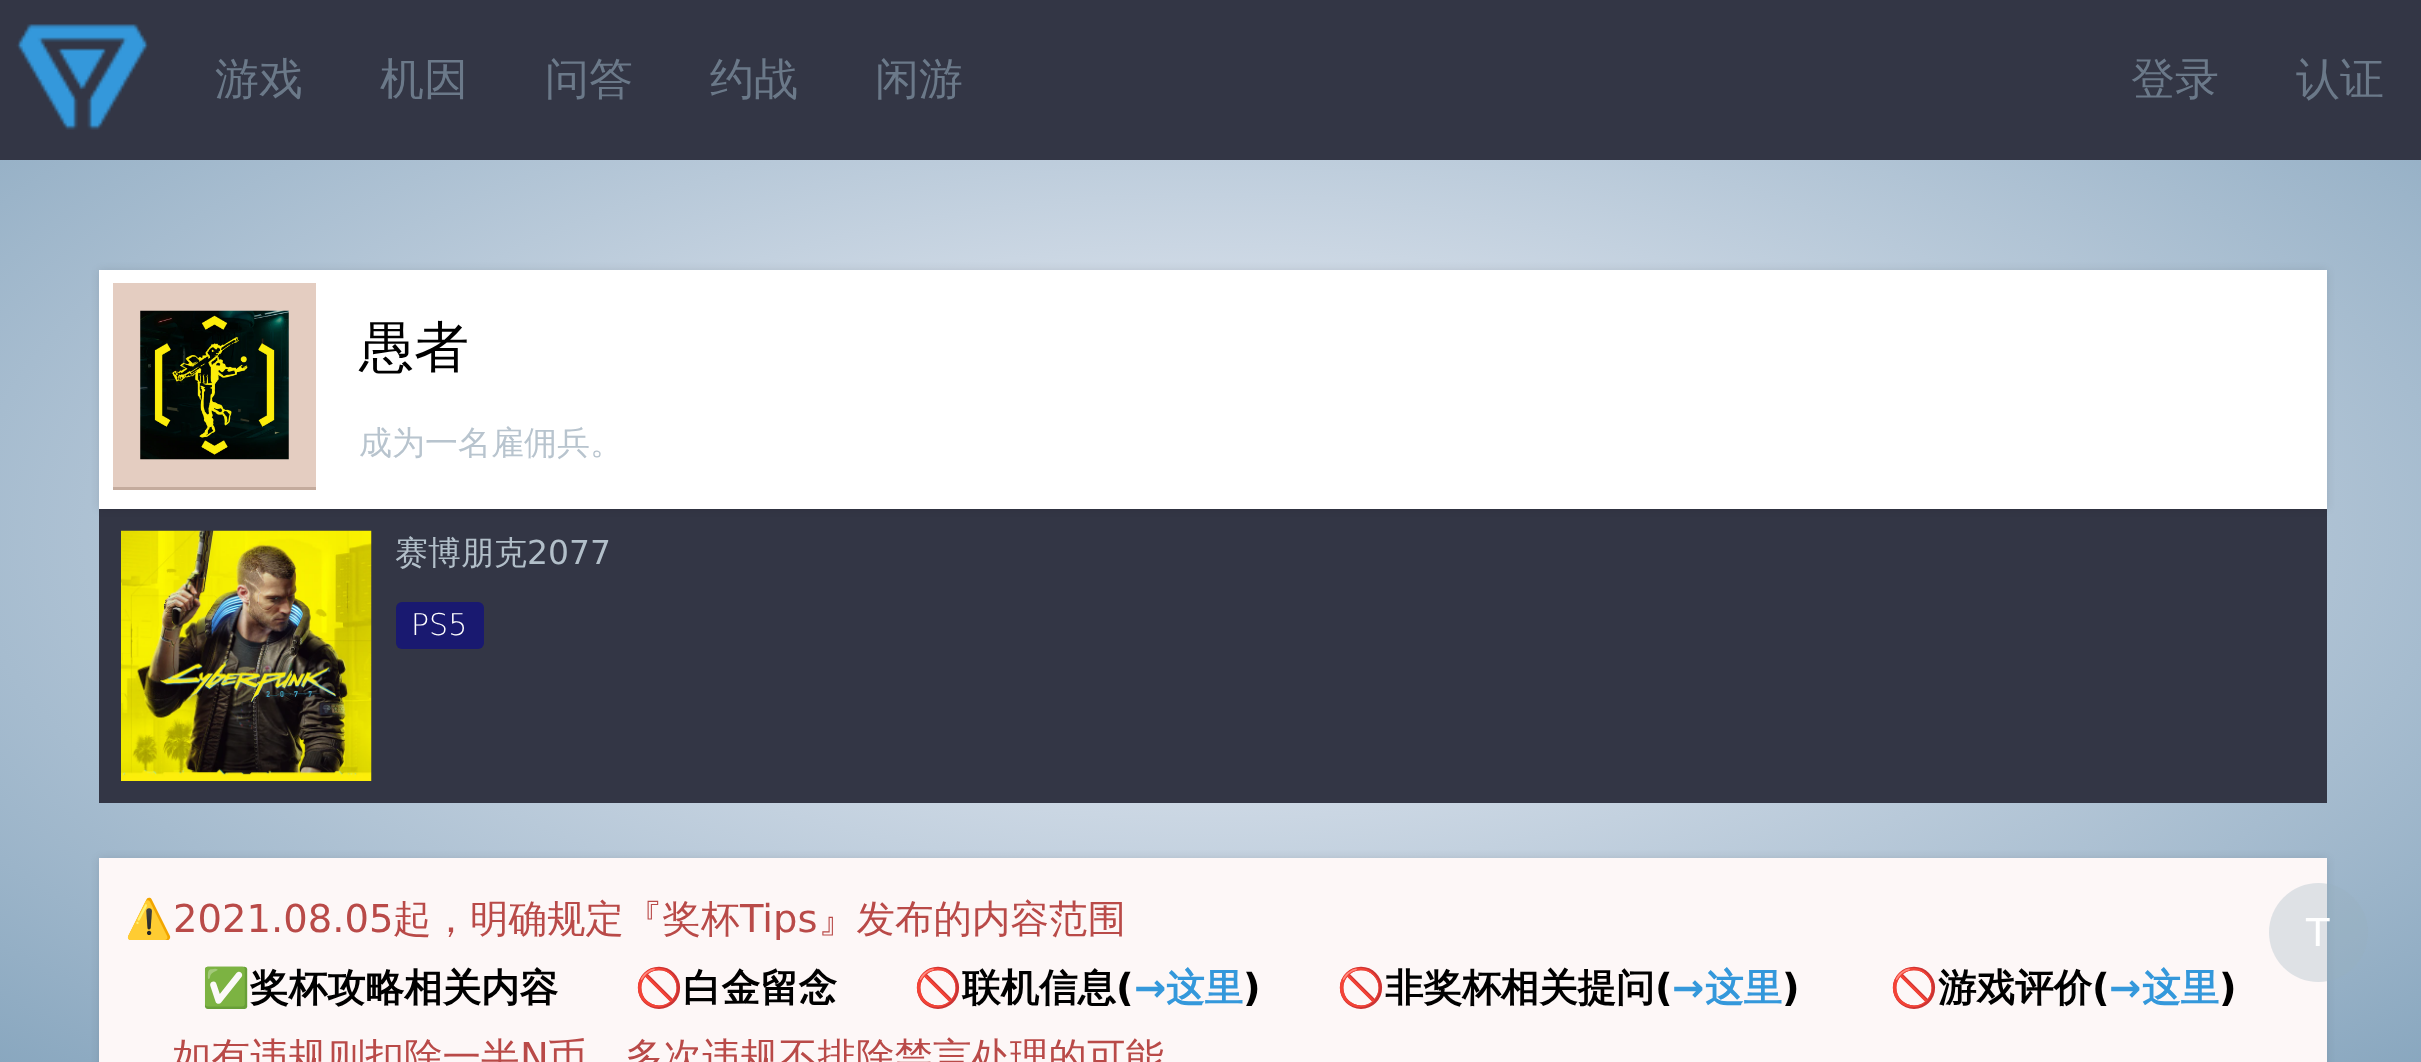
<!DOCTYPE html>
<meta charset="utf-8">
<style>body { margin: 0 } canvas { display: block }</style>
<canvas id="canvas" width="2421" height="1062"></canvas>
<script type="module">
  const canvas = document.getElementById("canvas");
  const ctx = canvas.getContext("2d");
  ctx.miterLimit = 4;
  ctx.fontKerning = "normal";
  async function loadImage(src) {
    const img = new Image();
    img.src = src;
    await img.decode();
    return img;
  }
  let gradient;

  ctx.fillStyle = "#ffffff";
  ctx.fillRect(0, 0, 2421, 1062);
  gradient = ctx.createRadialGradient(1211, 1210.25, 0, 1211, 1210.25, 1713);
  gradient.addColorStop(0, "#f2f3f9");
  gradient.addColorStop(1, "#89a7bf");
  ctx.fillStyle = gradient;
  ctx.beginPath();
  ctx.rect(0, 160, 2421, 902);
  ctx.save();
  ctx.clip();
  ctx.scale(1, 753 / 1713);
  ctx.fillRect(0, 0, 2421, 2416);
  ctx.restore();
  ctx.fillStyle = "#333645";
  ctx.fillRect(0, 0, 2421, 160);
  ctx.drawImage(await loadImage("img1.png"), 16, 24, 133, 106);
  ctx.font = "500 44px WenQuanYi Zen Hei";
  ctx.fillStyle = "#6b7989";
  ctx.fillText("游戏", 215, 94);
  ctx.fillText("机因", 380, 94);
  ctx.fillText("问答", 545, 94);
  ctx.fillText("约战", 710, 94);
  ctx.fillText("闲游", 875, 94);
  ctx.fillText("登录", 2131, 94);
  ctx.fillText("认证", 2296, 94);
  ctx.fillStyle = "#333645";
  ctx.fillRect(99, 509, 2228, 294);
  ctx.fillStyle = "rgba(0, 0, 0, 0.1)";
  ctx.filter = "blur(4px)";
  ctx.beginPath();
  ctx.rect(99, 270, 2228, 239);
  ctx.fill();
  ctx.filter = "none";
  ctx.fillStyle = "#ffffff";
  ctx.fillRect(99, 270, 2228, 239);
  ctx.fillStyle = "#e4cdc1";
  ctx.fillRect(113, 283, 203, 204);
  ctx.fillStyle = "#c4ab9d";
  ctx.fillRect(113, 487, 203, 3);
  ctx.drawImage(await loadImage("img2.png"), 140, 310, 149, 150);
  ctx.font = "500 55px WenQuanYi Zen Hei";
  ctx.fillStyle = "#000000";
  ctx.fillText("愚者", 359, 366);
  ctx.font = "500 33px WenQuanYi Zen Hei";
  ctx.fillStyle = "#b8c4ce";
  ctx.fillText("成为一名雇佣兵。", 359, 454);
  ctx.drawImage(await loadImage("img3.png"), 121, 530, 251, 251);
  ctx.fillStyle = "#b2bfc9";
  ctx.fillText("赛博朋克", 395, 564);
  ctx.font = "33px DejaVu Sans";
  ctx.fillText("2077", 527, 564);
  ctx.fillStyle = "#191970";
  ctx.beginPath();
  ctx.roundRect(396, 602, 88, 47, 6);
  ctx.fill();
  ctx.font = "200 30px DejaVu Sans";
  ctx.fillStyle = "#ffffff";
  ctx.fillText("PS5", 411, 635);
  ctx.fillStyle = "rgba(0, 0, 0, 0.1)";
  ctx.filter = "blur(4px)";
  ctx.beginPath();
  ctx.rect(99, 858, 2228, 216);
  ctx.fill();
  ctx.filter = "none";
  ctx.fillStyle = "#fdf7f7";
  ctx.fillRect(99, 858, 2228, 204);
  ctx.font = "38.5px Noto Color Emoji";
  ctx.fillStyle = "#b94a48";
  ctx.fillText("⚠️", 125, 932);
  ctx.font = "38.5px DejaVu Sans";
  ctx.fillText("2021.08.05", 173, 932);
  ctx.font = "500 38.5px WenQuanYi Zen Hei";
  ctx.fillText("起，明确规定『奖杯", 393, 932);
  ctx.font = "38.5px DejaVu Sans";
  ctx.fillText("Tips", 740, 932);
  ctx.font = "500 38.5px WenQuanYi Zen Hei";
  ctx.fillText("』发布的内容范围", 818, 932);
  ctx.font = "bold 38.5px Noto Color Emoji";
  ctx.fillStyle = "#000000";
  ctx.fillText("✅", 202, 1001);
  ctx.font = "bold 38.5px WenQuanYi Zen Hei";
  ctx.fillText("奖杯攻略相关内容", 250, 1001);
  ctx.font = "bold 38.5px Noto Color Emoji";
  ctx.fillText("🚫", 635, 1001);
  ctx.font = "bold 38.5px WenQuanYi Zen Hei";
  ctx.fillText("白金留念", 683, 1001);
  ctx.font = "bold 38.5px Noto Color Emoji";
  ctx.fillText("🚫", 914, 1001);
  ctx.font = "bold 38.5px WenQuanYi Zen Hei";
  ctx.fillText("联机信息", 962, 1001);
  ctx.font = "bold 38.5px DejaVu Sans";
  ctx.fillText("(", 1116, 1001);
  ctx.fillStyle = "#3498db";
  ctx.fillText("→", 1134, 1001);
  ctx.font = "bold 38.5px WenQuanYi Zen Hei";
  ctx.fillText("这里", 1166, 1001);
  ctx.font = "bold 38.5px DejaVu Sans";
  ctx.fillStyle = "#000000";
  ctx.fillText(")", 1243, 1001);
  ctx.font = "bold 38.5px Noto Color Emoji";
  ctx.fillText("🚫", 1337, 1001);
  ctx.font = "bold 38.5px WenQuanYi Zen Hei";
  ctx.fillText("非奖杯相关提问", 1385, 1001);
  ctx.font = "bold 38.5px DejaVu Sans";
  ctx.fillText("(", 1655, 1001);
  ctx.fillStyle = "#3498db";
  ctx.fillText("→", 1672, 1001);
  ctx.font = "bold 38.5px WenQuanYi Zen Hei";
  ctx.fillText("这里", 1705, 1001);
  ctx.font = "bold 38.5px DejaVu Sans";
  ctx.fillStyle = "#000000";
  ctx.fillText(")", 1782, 1001);
  ctx.font = "bold 38.5px Noto Color Emoji";
  ctx.fillText("🚫", 1890, 1001);
  ctx.font = "bold 38.5px WenQuanYi Zen Hei";
  ctx.fillText("游戏评价", 1938, 1001);
  ctx.font = "bold 38.5px DejaVu Sans";
  ctx.fillText("(", 2092, 1001);
  ctx.fillStyle = "#3498db";
  ctx.fillText("→", 2109, 1001);
  ctx.font = "bold 38.5px WenQuanYi Zen Hei";
  ctx.fillText("这里", 2142, 1001);
  ctx.font = "bold 38.5px DejaVu Sans";
  ctx.fillStyle = "#000000";
  ctx.fillText(")", 2219, 1001);
  ctx.font = "500 38.5px WenQuanYi Zen Hei";
  ctx.fillStyle = "#b94a48";
  ctx.fillText("如有违规则扣除一半", 173, 1070);
  ctx.font = "38.5px DejaVu Sans";
  ctx.fillText("N", 520, 1070);
  ctx.font = "500 38.5px WenQuanYi Zen Hei";
  ctx.fillText("币，多次违规不排除禁言处理的可能", 548, 1070);
  ctx.fillStyle = "rgba(153, 174, 188, 0.3)";
  ctx.beginPath();
  ctx.arc(2318.5, 932.5, 49.5, 0, Math.PI * 2);
  ctx.fill();
  ctx.font = "38.5px DejaVu Sans";
  ctx.fillStyle = "#ffffff";
  ctx.fillText("T", 2306, 946);
</script>
